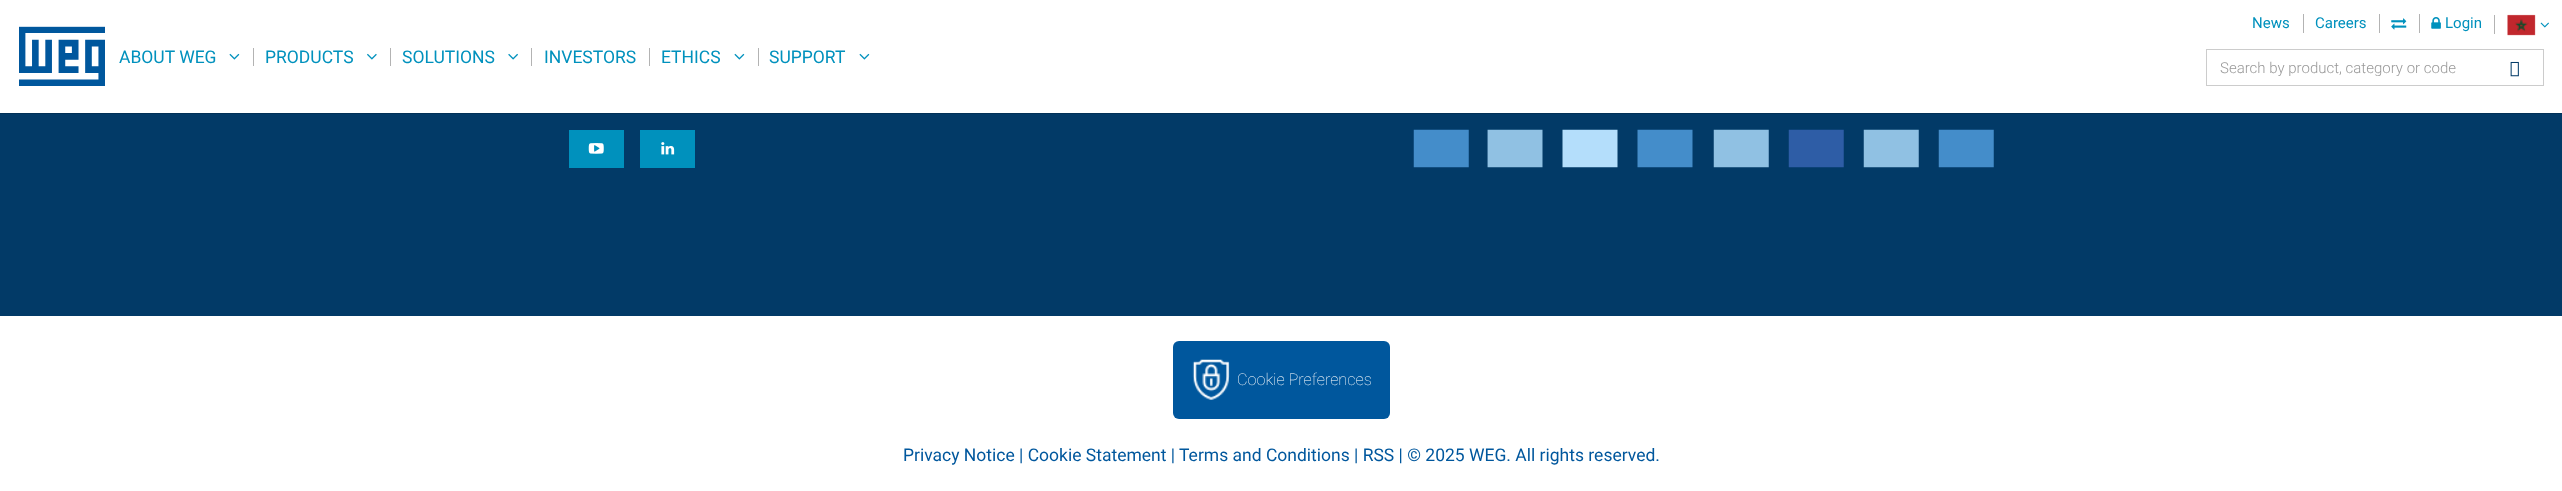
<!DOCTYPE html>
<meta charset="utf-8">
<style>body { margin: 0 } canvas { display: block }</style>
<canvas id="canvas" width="2562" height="491"></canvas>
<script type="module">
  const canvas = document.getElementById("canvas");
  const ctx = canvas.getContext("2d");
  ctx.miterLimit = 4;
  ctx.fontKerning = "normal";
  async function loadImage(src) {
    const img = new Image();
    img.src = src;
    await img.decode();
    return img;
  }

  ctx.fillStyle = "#ffffff";
  ctx.fillRect(0, 0, 2562, 491);
  ctx.fillStyle = "#023a67";
  ctx.fillRect(0, 113, 2562, 203);
  ctx.fillStyle = "rgba(0, 0, 0, 0.15)";
  ctx.filter = "blur(0.5px)";
  ctx.beginPath();
  ctx.rect(0, 1, 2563, 113);
  ctx.fill();
  ctx.filter = "none";
  ctx.fillStyle = "#ffffff";
  ctx.fillRect(0, 0, 2562, 113);
  ctx.drawImage(await loadImage("img1.png"), 19, 26, 86, 60);
  ctx.font = "17.5px Roboto";
  ctx.fillStyle = "#0091bd";
  ctx.fillText("ABOUT WEG", 119, 63);
  ctx.drawImage(await loadImage("img2.png"), 229, 53, 11, 7);
  ctx.fillStyle = "#b3b3b3";
  ctx.fillRect(253, 48, 1, 18);
  ctx.fillStyle = "#0091bd";
  ctx.fillText("PRODUCTS", 265, 63);
  ctx.drawImage(await loadImage("img3.png"), 367, 53, 10, 7);
  ctx.fillStyle = "#b3b3b3";
  ctx.fillRect(390, 48, 1, 18);
  ctx.fillStyle = "#0091bd";
  ctx.fillText("SOLUTIONS", 402, 63);
  ctx.drawImage(await loadImage("img4.png"), 508, 53, 10, 7);
  ctx.fillStyle = "#b3b3b3";
  ctx.fillRect(531, 48, 1, 18);
  ctx.fillStyle = "#0091bd";
  ctx.fillText("INVESTORS", 544, 63);
  ctx.fillStyle = "#b3b3b3";
  ctx.fillRect(649, 48, 1, 18);
  ctx.fillStyle = "#0091bd";
  ctx.fillText("ETHICS", 661, 63);
  ctx.drawImage(await loadImage("img2.png"), 734, 53, 11, 7);
  ctx.fillStyle = "#b3b3b3";
  ctx.fillRect(758, 48, 1, 18);
  ctx.fillStyle = "#0091bd";
  ctx.fillText("SUPPORT", 769, 63);
  ctx.drawImage(await loadImage("img2.png"), 859, 53, 11, 7);
  ctx.font = "15px Roboto";
  ctx.fillText("News", 2252, 28);
  ctx.fillStyle = "#b3b3b3";
  ctx.fillRect(2303, 14, 1, 19);
  ctx.fillStyle = "#0091bd";
  ctx.fillText("Careers", 2315, 28);
  ctx.fillStyle = "#b3b3b3";
  ctx.fillRect(2379, 14, 1, 19);
  ctx.drawImage(await loadImage("img5.png"), 2391, 18, 16, 12);
  ctx.fillRect(2419, 14, 1, 19);
  ctx.drawImage(await loadImage("img6.png"), 2431, 17, 10, 12);
  ctx.fillStyle = "#0091bd";
  ctx.fillText("Login", 2445, 28);
  ctx.fillStyle = "#b3b3b3";
  ctx.fillRect(2494, 15, 1, 19);
  ctx.drawImage(await loadImage("img7.png"), 2507, 14, 29, 22);
  ctx.drawImage(await loadImage("img8.png"), 2540, 22, 9, 6);
  ctx.strokeStyle = "#cccccc";
  ctx.strokeRect(2206.5, 49.5, 337, 36);
  ctx.save();
  ctx.beginPath();
  ctx.rect(2220, 59, 298, 17);
  ctx.clip();
  ctx.font = "300 15px Roboto";
  ctx.fillStyle = "#999999";
  ctx.fillText("Search by product, category or code", 2220, 73);
  ctx.restore();
  ctx.drawImage(await loadImage("img9.png"), 2510, 61, 9, 16);
  ctx.fillStyle = "#0091bd";
  ctx.fillRect(569, 130, 55, 38);
  ctx.drawImage(await loadImage("img10.png"), 588, 143, 16, 11);
  ctx.fillRect(640, 130, 55, 38);
  ctx.drawImage(await loadImage("img11.png"), 661, 142, 14, 13);
  ctx.drawImage(await loadImage("img12.png"), 1413, 129, 581, 39);
  ctx.fillStyle = "#00579d";
  ctx.beginPath();
  ctx.roundRect(1173, 341, 217, 78, 6);
  ctx.fill();
  ctx.drawImage(await loadImage("img13.png"), 1192, 359, 38, 41);
  ctx.font = "100 16.25px Roboto";
  ctx.fillStyle = "#ffffff";
  ctx.fillText("Cookie Preferences", 1237, 385);
  ctx.font = "17.5px Roboto";
  ctx.fillStyle = "#00579d";
  ctx.fillText("Privacy Notice | Cookie Statement |", 903, 461);
  ctx.fillText("Terms and Conditions | RSS | © 2025 WEG. All rights reserved.", 1179, 461);
</script>
